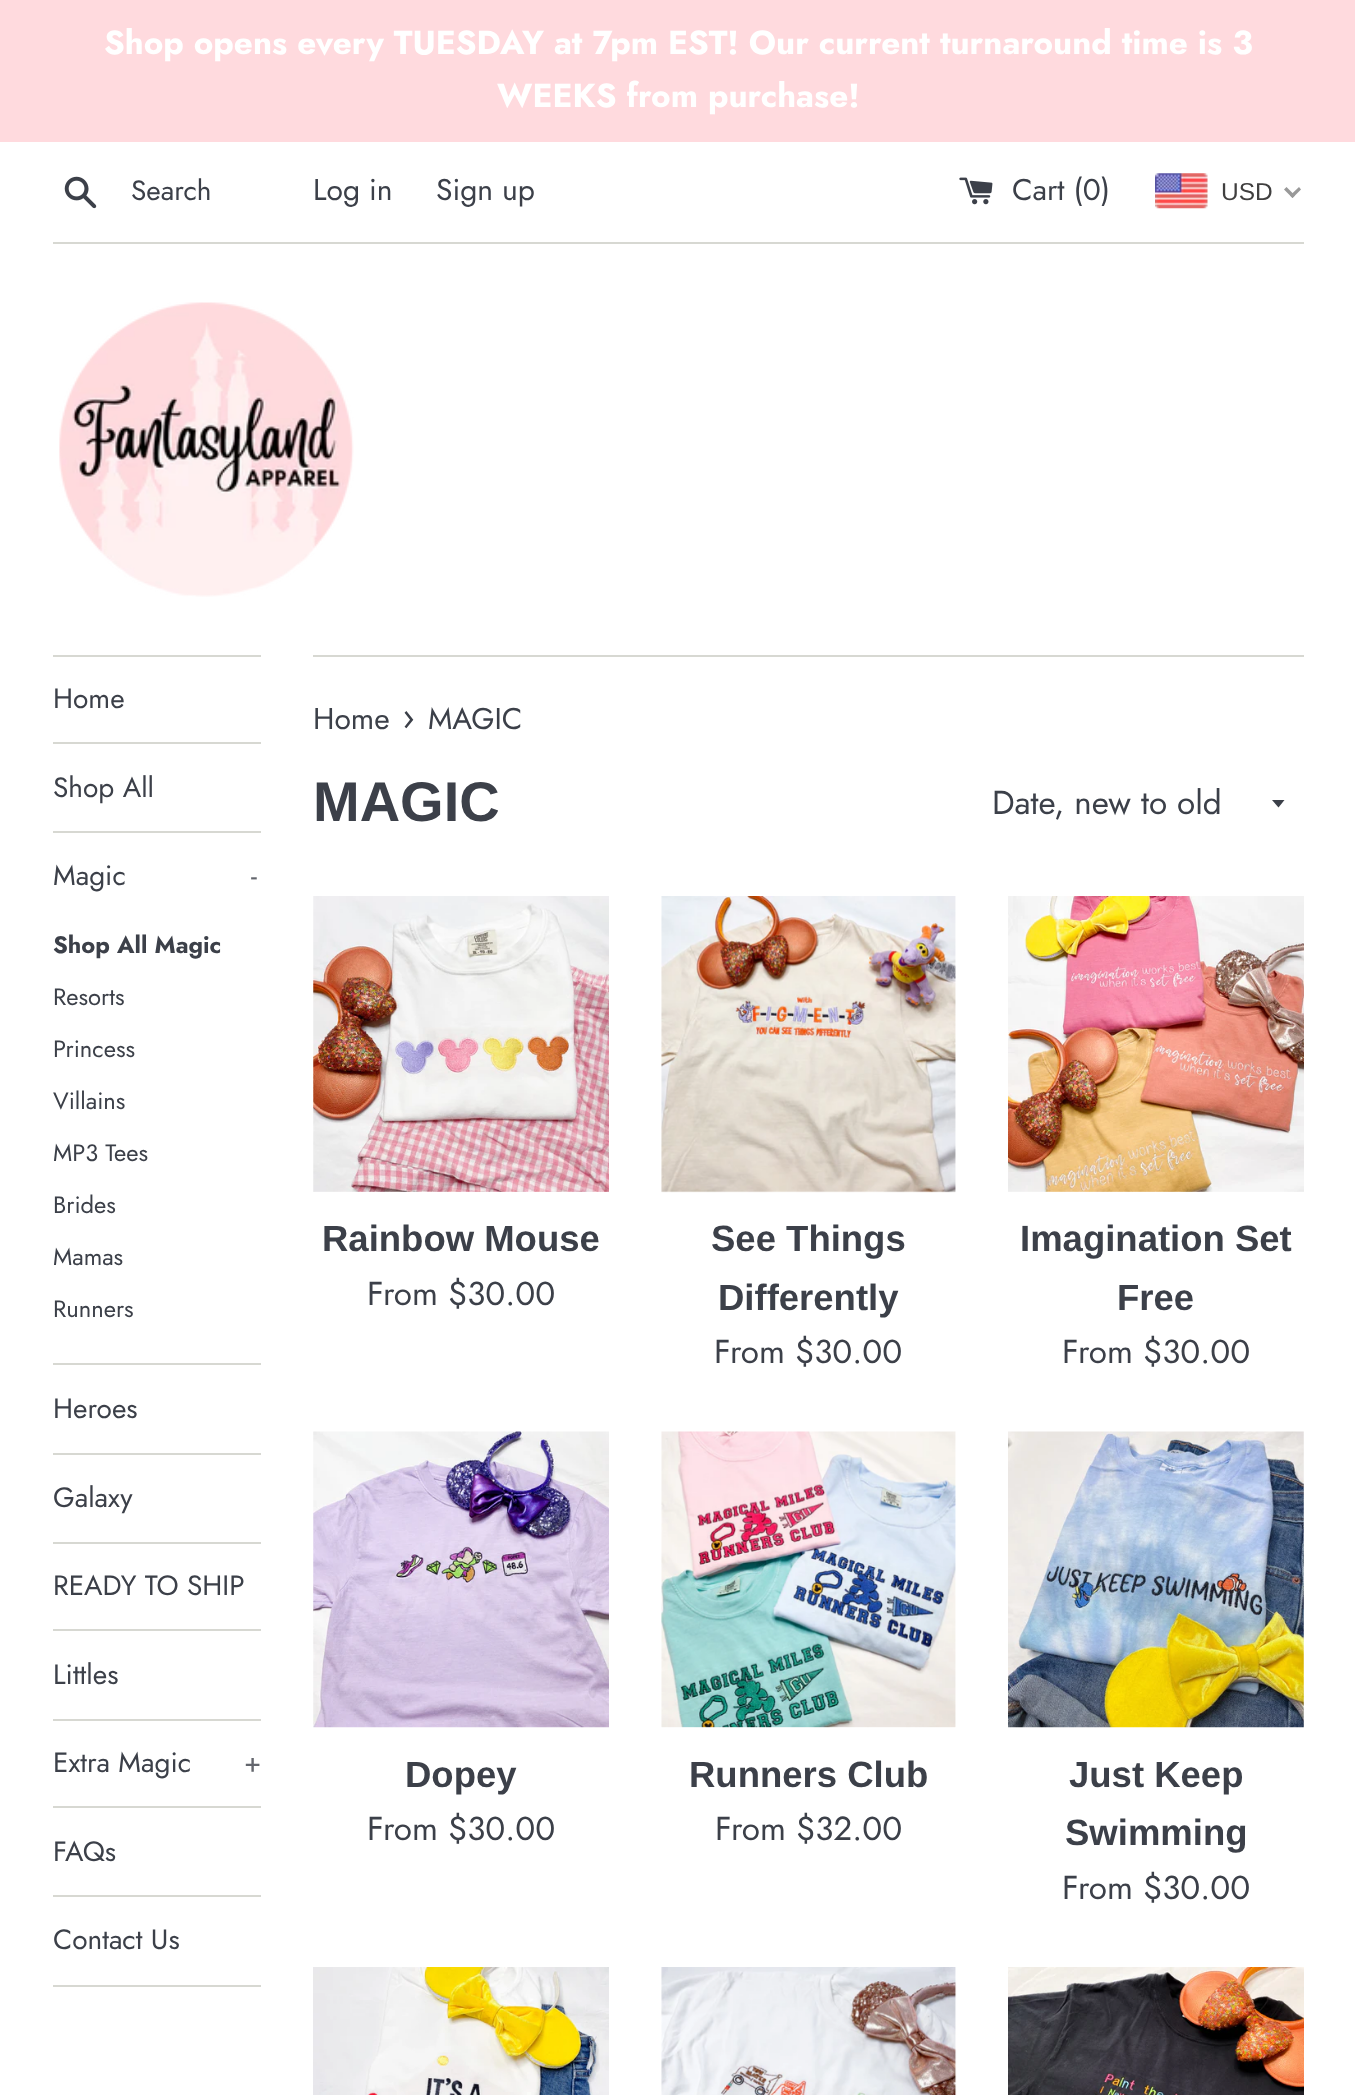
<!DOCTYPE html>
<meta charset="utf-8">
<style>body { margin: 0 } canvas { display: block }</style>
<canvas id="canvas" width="1355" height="2095"></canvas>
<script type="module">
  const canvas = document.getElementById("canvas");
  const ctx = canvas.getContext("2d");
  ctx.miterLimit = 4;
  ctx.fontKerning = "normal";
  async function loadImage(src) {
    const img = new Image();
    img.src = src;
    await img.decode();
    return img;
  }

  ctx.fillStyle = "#ffffff";
  ctx.fillRect(0, 0, 1355, 2095);
  ctx.fillStyle = "#ffdade";
  ctx.fillRect(0, 0, 1355, 142);
  ctx.font = "bold 33.25px Jost";
  ctx.fillStyle = "#ffffff";
  ctx.fillText("Shop opens every TUESDAY at 7pm EST! Our current turnaround time is 3", 104, 54);
  ctx.fillText("WEEKS from purchase!", 497, 107);
  ctx.drawImage(await loadImage("img1.png"), 64, 176, 33, 33);
  ctx.font = "28px Jost";
  ctx.fillStyle = "#3c4049";
  ctx.fillText("Search", 131, 200);
  ctx.font = "30px Jost";
  ctx.fillText("Log in", 313, 200);
  ctx.fillText("Sign up", 436, 200);
  ctx.drawImage(await loadImage("img2.png"), 959, 177, 34, 28);
  ctx.fillText("Cart (0)", 1012, 200);
  ctx.drawImage(await loadImage("img3.png"), 1155, 173, 53, 36);
  ctx.font = "24.5px Liberation Sans";
  ctx.fillStyle = "#403f3f";
  ctx.fillText("USD", 1221, 200);
  ctx.fillStyle = "#999999";
  ctx.beginPath();
  ctx.moveTo(1299, 187);
  ctx.lineTo(1301, 189.5);
  ctx.lineTo(1292.5, 198);
  ctx.lineTo(1290, 195.5);
  ctx.closePath();
  ctx.fill();
  ctx.beginPath();
  ctx.moveTo(1286.5, 187);
  ctx.lineTo(1295, 195.5);
  ctx.lineTo(1292.5, 198);
  ctx.lineTo(1284, 189.5);
  ctx.closePath();
  ctx.fill();
  ctx.fillStyle = "#d7d8d2";
  ctx.fillRect(53, 242, 1251, 2);
  ctx.drawImage(await loadImage("img4.png"), 59, 302, 295, 295);
  ctx.fillRect(53, 655, 208, 2);
  ctx.fillRect(53, 742, 208, 2);
  ctx.font = "28px Jost";
  ctx.fillStyle = "#3c4049";
  ctx.fillText("Home", 53, 708);
  ctx.fillStyle = "#d7d8d2";
  ctx.fillRect(53, 831, 208, 2);
  ctx.fillStyle = "#3c4049";
  ctx.fillText("Shop All", 53, 797);
  ctx.fillStyle = "#d7d8d2";
  ctx.fillRect(53, 1363, 208, 2);
  ctx.fillStyle = "#3c4049";
  ctx.fillText("Magic", 53, 885);
  ctx.fillStyle = "#63666d";
  ctx.fillText("-", 251, 885);
  ctx.font = "bold 23.75px Jost";
  ctx.fillStyle = "#3c4049";
  ctx.fillText("Shop All Magic", 53, 953);
  ctx.font = "23.75px Jost";
  ctx.fillText("Resorts", 53, 1005);
  ctx.fillText("Princess", 53, 1057);
  ctx.fillText("Villains", 53, 1109);
  ctx.fillText("MP3 Tees", 53, 1161);
  ctx.fillText("Brides", 53, 1213);
  ctx.fillText("Mamas", 53, 1265);
  ctx.fillText("Runners", 53, 1317);
  ctx.fillStyle = "#d7d8d2";
  ctx.fillRect(53, 1453, 208, 2);
  ctx.font = "28px Jost";
  ctx.fillStyle = "#3c4049";
  ctx.fillText("Heroes", 53, 1418);
  ctx.fillStyle = "#d7d8d2";
  ctx.fillRect(53, 1542, 208, 2);
  ctx.fillStyle = "#3c4049";
  ctx.fillText("Galaxy", 53, 1507);
  ctx.fillStyle = "#d7d8d2";
  ctx.fillRect(53, 1629, 208, 2);
  ctx.fillStyle = "#3c4049";
  ctx.fillText("READY TO SHIP", 53, 1595);
  ctx.fillStyle = "#d7d8d2";
  ctx.fillRect(53, 1719, 208, 2);
  ctx.fillStyle = "#3c4049";
  ctx.fillText("Littles", 53, 1684);
  ctx.fillStyle = "#d7d8d2";
  ctx.fillRect(53, 1806, 208, 2);
  ctx.fillStyle = "#3c4049";
  ctx.fillText("Extra Magic", 53, 1772);
  ctx.fillStyle = "#63666d";
  ctx.fillText("+", 244, 1772);
  ctx.fillStyle = "#d7d8d2";
  ctx.fillRect(53, 1895, 208, 2);
  ctx.fillStyle = "#3c4049";
  ctx.fillText("FAQs", 53, 1861);
  ctx.fillStyle = "#d7d8d2";
  ctx.fillRect(53, 1985, 208, 2);
  ctx.fillStyle = "#3c4049";
  ctx.fillText("Contact Us", 53, 1949);
  ctx.fillStyle = "#d7d8d2";
  ctx.fillRect(313, 655, 991, 2);
  ctx.font = "30px Jost";
  ctx.fillStyle = "#3c4049";
  ctx.fillText("Home", 313, 729);
  ctx.font = "36.5px Jost";
  ctx.fillText("›", 402, 729);
  ctx.font = "30px Jost";
  ctx.fillText("MAGIC", 428, 729);
  ctx.font = "bold 56px Arimo";
  ctx.fillText("MAGIC", 313, 821);
  ctx.beginPath();
  ctx.moveTo(1272, 800);
  ctx.lineTo(1278.5, 807.5);
  ctx.lineTo(1284.5, 800);
  ctx.closePath();
  ctx.fill();
  ctx.font = "33.25px Jost";
  ctx.fillText("Date, new to old", 992, 814);
  ctx.drawImage(await loadImage("img5.png"), 313, 896, 296, 296);
  ctx.font = "bold 36.5px Arimo";
  ctx.fillText("Rainbow Mouse", 322, 1251);
  ctx.font = "33.25px Jost";
  ctx.fillText("From $30.00", 367, 1305);
  ctx.drawImage(await loadImage("img6.png"), 661, 896, 295, 297);
  ctx.font = "bold 36.5px Arimo";
  ctx.fillText("See Things", 711, 1251);
  ctx.fillText("Differently", 718, 1310);
  ctx.font = "33.25px Jost";
  ctx.fillText("From $30.00", 714, 1363);
  ctx.drawImage(await loadImage("img7.png"), 1008, 896, 296, 296);
  ctx.font = "bold 36.5px Arimo";
  ctx.fillText("Imagination Set", 1020, 1251);
  ctx.fillText("Free", 1117, 1310);
  ctx.font = "33.25px Jost";
  ctx.fillText("From $30.00", 1062, 1363);
  ctx.drawImage(await loadImage("img8.png"), 313, 1431, 296, 297);
  ctx.font = "bold 36.5px Arimo";
  ctx.fillText("Dopey", 405, 1787);
  ctx.font = "33.25px Jost";
  ctx.fillText("From $30.00", 367, 1840);
  ctx.drawImage(await loadImage("img9.png"), 661, 1431, 295, 297);
  ctx.font = "bold 36.5px Arimo";
  ctx.fillText("Runners Club", 689, 1787);
  ctx.font = "33.25px Jost";
  ctx.fillText("From $32.00", 715, 1840);
  ctx.drawImage(await loadImage("img10.png"), 1008, 1431, 296, 297);
  ctx.font = "bold 36.5px Arimo";
  ctx.fillText("Just Keep", 1069, 1787);
  ctx.fillText("Swimming", 1065, 1845);
  ctx.font = "33.25px Jost";
  ctx.fillText("From $30.00", 1062, 1899);
  ctx.drawImage(await loadImage("img11.png"), 313, 1967, 296, 128);
  ctx.drawImage(await loadImage("img12.png"), 661, 1967, 296, 128);
  ctx.drawImage(await loadImage("img13.png"), 1008, 1967, 296, 128);
</script>
